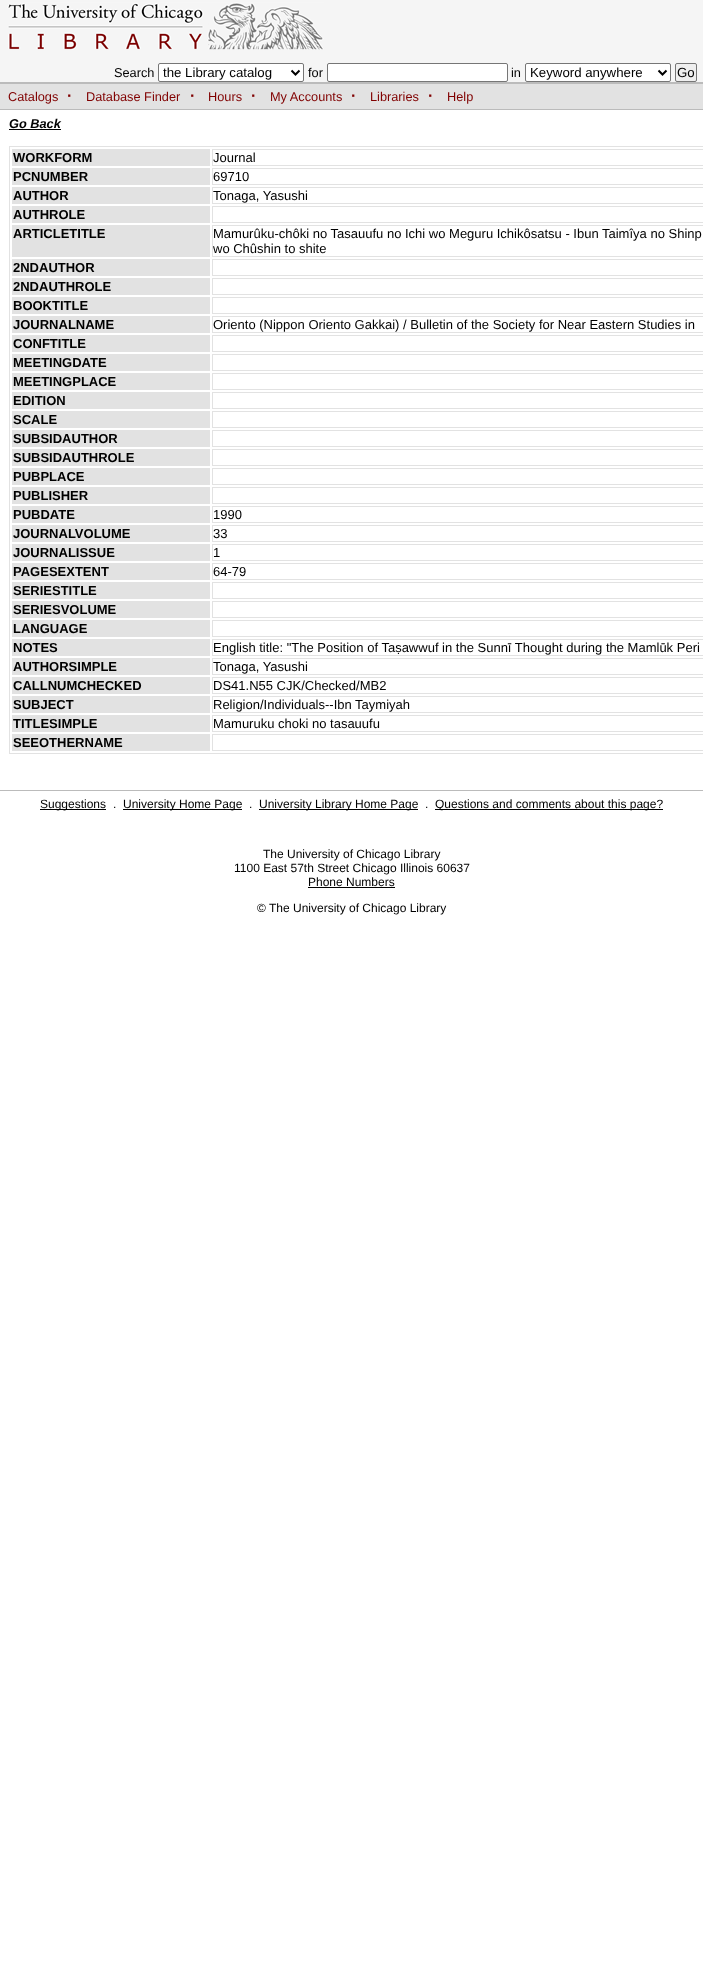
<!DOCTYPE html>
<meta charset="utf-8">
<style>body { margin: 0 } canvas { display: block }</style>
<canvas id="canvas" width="703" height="1981"></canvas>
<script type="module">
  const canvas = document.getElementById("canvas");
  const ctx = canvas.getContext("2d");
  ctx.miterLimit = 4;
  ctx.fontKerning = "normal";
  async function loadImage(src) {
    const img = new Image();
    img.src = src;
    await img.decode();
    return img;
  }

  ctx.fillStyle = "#ffffff";
  ctx.fillRect(0, 0, 703, 1981);
  ctx.fillStyle = "#f5f5f5";
  ctx.fillRect(0, 0, 703, 82);
  ctx.fillStyle = "#bbbbbb";
  ctx.fillRect(0, 82, 703, 2);
  ctx.drawImage(await loadImage("img1.png"), 7, 2, 317, 48);
  ctx.font = "12.75px Liberation Sans";
  ctx.fillStyle = "#000000";
  ctx.fillText("Search", 114, 77);
  ctx.fillStyle = "#ffffff";
  ctx.beginPath();
  ctx.roundRect(158.5, 63.5, 145, 18, 1.5);
  ctx.fill();
  ctx.strokeStyle = "#767676";
  ctx.stroke();
  ctx.beginPath();
  ctx.moveTo(291.5, 70.5);
  ctx.lineTo(295.5, 74.5);
  ctx.lineTo(299.5, 70.5);
  ctx.strokeStyle = "#000000";
  ctx.lineWidth = 2;
  ctx.stroke();
  ctx.font = "13.25px Liberation Sans";
  ctx.fillStyle = "#000000";
  ctx.fillText("the Library catalog", 163, 77);
  ctx.font = "12.75px Liberation Sans";
  ctx.fillText("for", 308, 77);
  ctx.fillStyle = "#ffffff";
  ctx.beginPath();
  ctx.roundRect(327.5, 63.5, 180, 18, 1.5);
  ctx.fill();
  ctx.strokeStyle = "#767676";
  ctx.lineWidth = 1;
  ctx.stroke();
  ctx.fillStyle = "#000000";
  ctx.fillText("in", 511, 77);
  ctx.fillStyle = "#ffffff";
  ctx.beginPath();
  ctx.roundRect(525.5, 63.5, 145, 18, 1.5);
  ctx.fill();
  ctx.stroke();
  ctx.beginPath();
  ctx.moveTo(658.5, 70.5);
  ctx.lineTo(662.5, 74.5);
  ctx.lineTo(666.5, 70.5);
  ctx.strokeStyle = "#000000";
  ctx.lineWidth = 2;
  ctx.stroke();
  ctx.font = "13.25px Liberation Sans";
  ctx.fillStyle = "#000000";
  ctx.fillText("Keyword anywhere", 530, 77);
  ctx.fillStyle = "#efefef";
  ctx.beginPath();
  ctx.roundRect(675.5, 63.5, 21, 18, 1.5);
  ctx.fill();
  ctx.strokeStyle = "#767676";
  ctx.lineWidth = 1;
  ctx.stroke();
  ctx.fillStyle = "#000000";
  ctx.fillText("Go", 677, 77);
  ctx.fillStyle = "#e2e2e2";
  ctx.fillRect(0, 84, 703, 25);
  ctx.fillStyle = "#bbbbbb";
  ctx.fillRect(0, 109, 703, 1);
  ctx.font = "12.75px Liberation Sans";
  ctx.fillStyle = "#800000";
  ctx.fillText("Catalogs", 8, 101);
  ctx.font = "bold 16px Liberation Sans";
  ctx.fillText("·", 67, 101);
  ctx.font = "12.75px Liberation Sans";
  ctx.fillText("Database Finder", 86, 101);
  ctx.font = "bold 16px Liberation Sans";
  ctx.fillText("·", 190, 101);
  ctx.font = "12.75px Liberation Sans";
  ctx.fillText("Hours", 208, 101);
  ctx.font = "bold 16px Liberation Sans";
  ctx.fillText("·", 251, 101);
  ctx.font = "12.75px Liberation Sans";
  ctx.fillText("My Accounts", 270, 101);
  ctx.font = "bold 16px Liberation Sans";
  ctx.fillText("·", 351, 101);
  ctx.font = "12.75px Liberation Sans";
  ctx.fillText("Libraries", 370, 101);
  ctx.font = "bold 16px Liberation Sans";
  ctx.fillText("·", 428, 101);
  ctx.font = "12.75px Liberation Sans";
  ctx.fillText("Help", 447, 101);
  ctx.font = "italic bold 12.75px Liberation Sans";
  ctx.fillStyle = "#000000";
  ctx.fillText("Go Back", 9, 128);
  ctx.fillRect(9, 129, 52, 1);
  ctx.strokeStyle = "#e2e2e2";
  ctx.strokeRect(9.5, 146.5, 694, 607);
  ctx.fillStyle = "#e2e2e2";
  ctx.fillRect(12, 149, 198, 17);
  ctx.font = "bold 13px Liberation Sans";
  ctx.fillStyle = "#000000";
  ctx.fillText("WORKFORM", 13, 162);
  ctx.strokeRect(212.5, 149.5, 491, 16);
  ctx.font = "13px Liberation Sans";
  ctx.fillText("Journal", 213, 162);
  ctx.fillStyle = "#e2e2e2";
  ctx.fillRect(12, 168, 198, 17);
  ctx.font = "bold 13px Liberation Sans";
  ctx.fillStyle = "#000000";
  ctx.fillText("PCNUMBER", 13, 181);
  ctx.strokeRect(212.5, 168.5, 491, 16);
  ctx.font = "13px Liberation Sans";
  ctx.fillText("69710", 213, 181);
  ctx.fillStyle = "#e2e2e2";
  ctx.fillRect(12, 187, 198, 17);
  ctx.font = "bold 13px Liberation Sans";
  ctx.fillStyle = "#000000";
  ctx.fillText("AUTHOR", 13, 200);
  ctx.strokeRect(212.5, 187.5, 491, 16);
  ctx.font = "13px Liberation Sans";
  ctx.fillText("Tonaga, Yasushi", 213, 200);
  ctx.fillStyle = "#e2e2e2";
  ctx.fillRect(12, 206, 198, 17);
  ctx.font = "bold 13px Liberation Sans";
  ctx.fillStyle = "#000000";
  ctx.fillText("AUTHROLE", 13, 219);
  ctx.strokeRect(212.5, 206.5, 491, 16);
  ctx.fillStyle = "#e2e2e2";
  ctx.fillRect(12, 225, 198, 32);
  ctx.fillStyle = "#000000";
  ctx.fillText("ARTICLETITLE", 13, 238);
  ctx.strokeRect(212.5, 225.5, 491, 31);
  ctx.font = "13px Liberation Sans";
  ctx.fillText("Mamurûku-chôki no Tasauufu no Ichi wo Meguru Ichikôsatsu - Ibun Taimîya no Shinp", 213, 238);
  ctx.fillText("wo Chûshin to shite", 213, 253);
  ctx.fillStyle = "#e2e2e2";
  ctx.fillRect(12, 259, 198, 17);
  ctx.font = "bold 13px Liberation Sans";
  ctx.fillStyle = "#000000";
  ctx.fillText("2NDAUTHOR", 13, 272);
  ctx.strokeRect(212.5, 259.5, 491, 16);
  ctx.fillStyle = "#e2e2e2";
  ctx.fillRect(12, 278, 198, 17);
  ctx.fillStyle = "#000000";
  ctx.fillText("2NDAUTHROLE", 13, 291);
  ctx.strokeRect(212.5, 278.5, 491, 16);
  ctx.fillStyle = "#e2e2e2";
  ctx.fillRect(12, 297, 198, 17);
  ctx.fillStyle = "#000000";
  ctx.fillText("BOOKTITLE", 13, 310);
  ctx.strokeRect(212.5, 297.5, 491, 16);
  ctx.fillStyle = "#e2e2e2";
  ctx.fillRect(12, 316, 198, 17);
  ctx.fillStyle = "#000000";
  ctx.fillText("JOURNALNAME", 13, 329);
  ctx.strokeRect(212.5, 316.5, 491, 16);
  ctx.font = "13px Liberation Sans";
  ctx.fillText("Oriento (Nippon Oriento Gakkai) / Bulletin of the Society for Near Eastern Studies in", 213, 329);
  ctx.fillStyle = "#e2e2e2";
  ctx.fillRect(12, 335, 198, 17);
  ctx.font = "bold 13px Liberation Sans";
  ctx.fillStyle = "#000000";
  ctx.fillText("CONFTITLE", 13, 348);
  ctx.strokeRect(212.5, 335.5, 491, 16);
  ctx.fillStyle = "#e2e2e2";
  ctx.fillRect(12, 354, 198, 17);
  ctx.fillStyle = "#000000";
  ctx.fillText("MEETINGDATE", 13, 367);
  ctx.strokeRect(212.5, 354.5, 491, 16);
  ctx.fillStyle = "#e2e2e2";
  ctx.fillRect(12, 373, 198, 17);
  ctx.fillStyle = "#000000";
  ctx.fillText("MEETINGPLACE", 13, 386);
  ctx.strokeRect(212.5, 373.5, 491, 16);
  ctx.fillStyle = "#e2e2e2";
  ctx.fillRect(12, 392, 198, 17);
  ctx.fillStyle = "#000000";
  ctx.fillText("EDITION", 13, 405);
  ctx.strokeRect(212.5, 392.5, 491, 16);
  ctx.fillStyle = "#e2e2e2";
  ctx.fillRect(12, 411, 198, 17);
  ctx.fillStyle = "#000000";
  ctx.fillText("SCALE", 13, 424);
  ctx.strokeRect(212.5, 411.5, 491, 16);
  ctx.fillStyle = "#e2e2e2";
  ctx.fillRect(12, 430, 198, 17);
  ctx.fillStyle = "#000000";
  ctx.fillText("SUBSIDAUTHOR", 13, 443);
  ctx.strokeRect(212.5, 430.5, 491, 16);
  ctx.fillStyle = "#e2e2e2";
  ctx.fillRect(12, 449, 198, 17);
  ctx.fillStyle = "#000000";
  ctx.fillText("SUBSIDAUTHROLE", 13, 462);
  ctx.strokeRect(212.5, 449.5, 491, 16);
  ctx.fillStyle = "#e2e2e2";
  ctx.fillRect(12, 468, 198, 17);
  ctx.fillStyle = "#000000";
  ctx.fillText("PUBPLACE", 13, 481);
  ctx.strokeRect(212.5, 468.5, 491, 16);
  ctx.fillStyle = "#e2e2e2";
  ctx.fillRect(12, 487, 198, 17);
  ctx.fillStyle = "#000000";
  ctx.fillText("PUBLISHER", 13, 500);
  ctx.strokeRect(212.5, 487.5, 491, 16);
  ctx.fillStyle = "#e2e2e2";
  ctx.fillRect(12, 506, 198, 17);
  ctx.fillStyle = "#000000";
  ctx.fillText("PUBDATE", 13, 519);
  ctx.strokeRect(212.5, 506.5, 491, 16);
  ctx.font = "13px Liberation Sans";
  ctx.fillText("1990", 213, 519);
  ctx.fillStyle = "#e2e2e2";
  ctx.fillRect(12, 525, 198, 17);
  ctx.font = "bold 13px Liberation Sans";
  ctx.fillStyle = "#000000";
  ctx.fillText("JOURNALVOLUME", 13, 538);
  ctx.strokeRect(212.5, 525.5, 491, 16);
  ctx.font = "13px Liberation Sans";
  ctx.fillText("33", 213, 538);
  ctx.fillStyle = "#e2e2e2";
  ctx.fillRect(12, 544, 198, 17);
  ctx.font = "bold 13px Liberation Sans";
  ctx.fillStyle = "#000000";
  ctx.fillText("JOURNALISSUE", 13, 557);
  ctx.strokeRect(212.5, 544.5, 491, 16);
  ctx.font = "13px Liberation Sans";
  ctx.fillText("1", 213, 557);
  ctx.fillStyle = "#e2e2e2";
  ctx.fillRect(12, 563, 198, 17);
  ctx.font = "bold 13px Liberation Sans";
  ctx.fillStyle = "#000000";
  ctx.fillText("PAGESEXTENT", 13, 576);
  ctx.strokeRect(212.5, 563.5, 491, 16);
  ctx.font = "13px Liberation Sans";
  ctx.fillText("64-79", 213, 576);
  ctx.fillStyle = "#e2e2e2";
  ctx.fillRect(12, 582, 198, 17);
  ctx.font = "bold 13px Liberation Sans";
  ctx.fillStyle = "#000000";
  ctx.fillText("SERIESTITLE", 13, 595);
  ctx.strokeRect(212.5, 582.5, 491, 16);
  ctx.fillStyle = "#e2e2e2";
  ctx.fillRect(12, 601, 198, 17);
  ctx.fillStyle = "#000000";
  ctx.fillText("SERIESVOLUME", 13, 614);
  ctx.strokeRect(212.5, 601.5, 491, 16);
  ctx.fillStyle = "#e2e2e2";
  ctx.fillRect(12, 620, 198, 17);
  ctx.fillStyle = "#000000";
  ctx.fillText("LANGUAGE", 13, 633);
  ctx.strokeRect(212.5, 620.5, 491, 16);
  ctx.fillStyle = "#e2e2e2";
  ctx.fillRect(12, 639, 198, 17);
  ctx.fillStyle = "#000000";
  ctx.fillText("NOTES", 13, 652);
  ctx.strokeRect(212.5, 639.5, 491, 16);
  ctx.font = "13px Liberation Sans";
  ctx.fillText("English title: \"The Position of Taṣawwuf in the Sunnī Thought during the Mamlūk Peri", 213, 652);
  ctx.fillStyle = "#e2e2e2";
  ctx.fillRect(12, 658, 198, 17);
  ctx.font = "bold 13px Liberation Sans";
  ctx.fillStyle = "#000000";
  ctx.fillText("AUTHORSIMPLE", 13, 671);
  ctx.strokeRect(212.5, 658.5, 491, 16);
  ctx.font = "13px Liberation Sans";
  ctx.fillText("Tonaga, Yasushi", 213, 671);
  ctx.fillStyle = "#e2e2e2";
  ctx.fillRect(12, 677, 198, 17);
  ctx.font = "bold 13px Liberation Sans";
  ctx.fillStyle = "#000000";
  ctx.fillText("CALLNUMCHECKED", 13, 690);
  ctx.strokeRect(212.5, 677.5, 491, 16);
  ctx.font = "13px Liberation Sans";
  ctx.fillText("DS41.N55 CJK/Checked/MB2", 213, 690);
  ctx.fillStyle = "#e2e2e2";
  ctx.fillRect(12, 696, 198, 17);
  ctx.font = "bold 13px Liberation Sans";
  ctx.fillStyle = "#000000";
  ctx.fillText("SUBJECT", 13, 709);
  ctx.strokeRect(212.5, 696.5, 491, 16);
  ctx.font = "13px Liberation Sans";
  ctx.fillText("Religion/Individuals--Ibn Taymiyah", 213, 709);
  ctx.fillStyle = "#e2e2e2";
  ctx.fillRect(12, 715, 198, 17);
  ctx.font = "bold 13px Liberation Sans";
  ctx.fillStyle = "#000000";
  ctx.fillText("TITLESIMPLE", 13, 728);
  ctx.strokeRect(212.5, 715.5, 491, 16);
  ctx.font = "13px Liberation Sans";
  ctx.fillText("Mamuruku choki no tasauufu", 213, 728);
  ctx.fillStyle = "#e2e2e2";
  ctx.fillRect(12, 734, 198, 17);
  ctx.font = "bold 13px Liberation Sans";
  ctx.fillStyle = "#000000";
  ctx.fillText("SEEOTHERNAME", 13, 747);
  ctx.strokeRect(212.5, 734.5, 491, 16);
  ctx.fillStyle = "#bbbbbb";
  ctx.fillRect(0, 790, 703, 1);
  ctx.fillStyle = "#000000";
  ctx.fillRect(40, 809, 66, 1);
  ctx.font = "12px Liberation Sans";
  ctx.fillText("Suggestions", 40, 808);
  ctx.fillText(".", 113, 808);
  ctx.fillRect(123, 809, 119, 1);
  ctx.fillText("University Home Page", 123, 808);
  ctx.fillText(".", 249, 808);
  ctx.fillRect(259, 809, 159, 1);
  ctx.fillText("University Library Home Page", 259, 808);
  ctx.fillText(".", 425, 808);
  ctx.fillRect(435, 809, 228, 1);
  ctx.fillText("Questions and comments about this page?", 435, 808);
  ctx.fillText("The University of Chicago Library", 263, 858);
  ctx.fillText("1100 East 57th Street Chicago Illinois 60637", 234, 872);
  ctx.fillText("Phone Numbers", 308, 886);
  ctx.fillRect(308, 887, 87, 1);
  ctx.fillText("© The University of Chicago Library", 257, 912);
</script>
